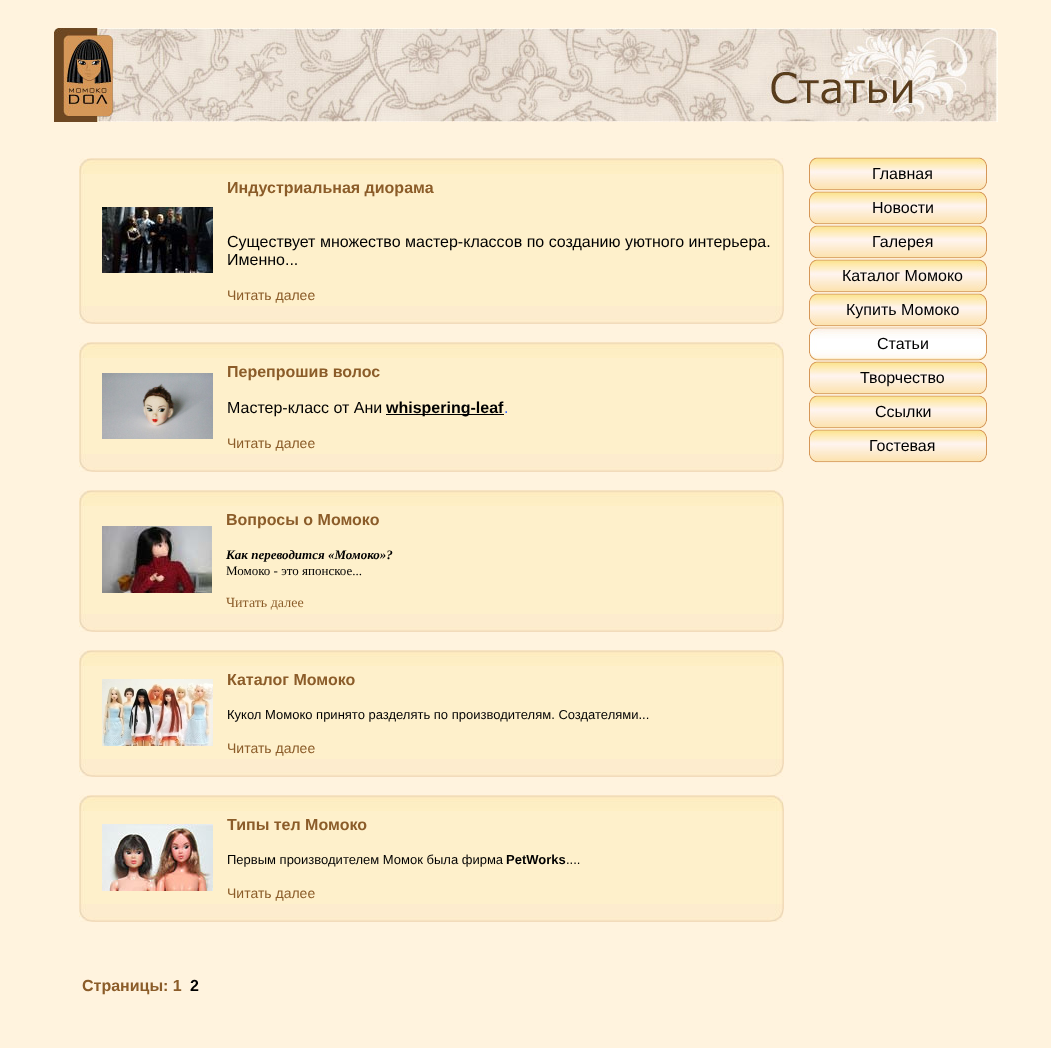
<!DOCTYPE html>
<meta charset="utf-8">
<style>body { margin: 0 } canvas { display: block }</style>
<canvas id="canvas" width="1051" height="1048"></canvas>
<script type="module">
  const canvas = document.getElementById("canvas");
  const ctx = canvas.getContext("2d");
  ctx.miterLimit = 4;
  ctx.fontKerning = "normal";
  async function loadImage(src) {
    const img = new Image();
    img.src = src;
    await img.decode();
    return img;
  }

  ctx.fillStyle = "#fff3de";
  ctx.fillRect(0, 0, 1051, 1048);
  ctx.drawImage(await loadImage("img1.png"), 54, 28, 944, 94);
  ctx.drawImage(await loadImage("img2.png"), 79, 174, 705, 132);
  ctx.drawImage(await loadImage("img3.png"), 79, 158, 705, 16);
  ctx.drawImage(await loadImage("img4.png"), 102, 207, 111, 66);
  ctx.font = "bold 16px Liberation Sans";
  ctx.fillStyle = "#8b5c29";
  ctx.fillText("Индустриальная диорама", 227, 193);
  ctx.font = "16px Liberation Sans";
  ctx.fillStyle = "#000000";
  ctx.fillText("Существует множество мастер-классов по созданию уютного интерьера.", 227, 247);
  ctx.fillText("Именно...", 227, 265);
  ctx.font = "14px Liberation Sans";
  ctx.fillStyle = "#8b5c29";
  ctx.fillText("Читать далее", 227, 300);
  ctx.drawImage(await loadImage("img5.png"), 79, 306, 705, 18);
  ctx.drawImage(await loadImage("img6.png"), 79, 358, 705, 96);
  ctx.drawImage(await loadImage("img3.png"), 79, 342, 705, 16);
  ctx.drawImage(await loadImage("img7.png"), 102, 373, 111, 66);
  ctx.font = "bold 16px Liberation Sans";
  ctx.fillText("Перепрошив волос", 227, 377);
  ctx.font = "16px Liberation Sans";
  ctx.fillStyle = "#000000";
  ctx.fillText("Мастер-класс от Ани", 227, 413);
  ctx.fillRect(386, 414, 118, 1);
  ctx.font = "bold 16px Liberation Sans";
  ctx.fillText("whispering-leaf", 386, 413);
  ctx.font = "16px Liberation Sans";
  ctx.fillStyle = "#3366ff";
  ctx.fillText(".", 504, 413);
  ctx.font = "14px Liberation Sans";
  ctx.fillStyle = "#8b5c29";
  ctx.fillText("Читать далее", 227, 448);
  ctx.drawImage(await loadImage("img5.png"), 79, 454, 705, 18);
  ctx.drawImage(await loadImage("img8.png"), 79, 506, 705, 108);
  ctx.drawImage(await loadImage("img3.png"), 79, 490, 705, 16);
  ctx.drawImage(await loadImage("img9.png"), 102, 526, 110, 67);
  ctx.font = "bold 16px Liberation Sans";
  ctx.fillText("Вопросы о Момоко", 226, 525);
  ctx.font = "italic bold 13px Liberation Serif";
  ctx.fillStyle = "#000000";
  ctx.fillText("Как переводится «Момоко»?", 226, 559);
  ctx.font = "13px Liberation Serif";
  ctx.fillText("Момоко - это японское...", 226, 575);
  ctx.font = "14px Liberation Serif";
  ctx.fillStyle = "#8b5c29";
  ctx.fillText("Читать далее", 226, 607);
  ctx.drawImage(await loadImage("img5.png"), 79, 614, 705, 18);
  ctx.drawImage(await loadImage("img10.png"), 79, 666, 705, 93);
  ctx.drawImage(await loadImage("img3.png"), 79, 650, 705, 16);
  ctx.drawImage(await loadImage("img11.png"), 102, 679, 111, 67);
  ctx.font = "bold 16px Liberation Sans";
  ctx.fillText("Каталог Момоко", 227, 685);
  ctx.font = "13px Liberation Sans";
  ctx.fillStyle = "#000000";
  ctx.fillText("Кукол Момоко принято разделять по производителям. Создателями...", 227, 719);
  ctx.font = "14px Liberation Sans";
  ctx.fillStyle = "#8b5c29";
  ctx.fillText("Читать далее", 227, 753);
  ctx.drawImage(await loadImage("img5.png"), 79, 759, 705, 18);
  ctx.drawImage(await loadImage("img10.png"), 79, 811, 705, 93);
  ctx.drawImage(await loadImage("img3.png"), 79, 795, 705, 16);
  ctx.drawImage(await loadImage("img12.png"), 102, 824, 111, 67);
  ctx.font = "bold 16px Liberation Sans";
  ctx.fillText("Типы тел Момоко", 227, 830);
  ctx.font = "13px Liberation Sans";
  ctx.fillStyle = "#000000";
  ctx.fillText("Первым производителем Момок была фирма", 227, 864);
  ctx.font = "bold 13px Liberation Sans";
  ctx.fillText("PetWorks", 506, 864);
  ctx.font = "13px Liberation Sans";
  ctx.fillText("....", 566, 864);
  ctx.font = "14px Liberation Sans";
  ctx.fillStyle = "#8b5c29";
  ctx.fillText("Читать далее", 227, 898);
  ctx.drawImage(await loadImage("img5.png"), 79, 904, 705, 18);
  ctx.font = "bold 16px Liberation Sans";
  ctx.fillText("Страницы: 1", 82, 991);
  ctx.fillStyle = "#000000";
  ctx.fillText("2", 190, 991);
  ctx.drawImage(await loadImage("img13.png"), 809, 157, 178, 34);
  ctx.font = "16px Liberation Sans";
  ctx.fillText("Главная", 872, 179);
  ctx.drawImage(await loadImage("img13.png"), 809, 191, 178, 34);
  ctx.fillText("Новости", 872, 213);
  ctx.drawImage(await loadImage("img13.png"), 809, 225, 178, 34);
  ctx.fillText("Галерея", 872, 247);
  ctx.drawImage(await loadImage("img13.png"), 809, 259, 178, 34);
  ctx.fillText("Каталог Момоко", 842, 281);
  ctx.drawImage(await loadImage("img13.png"), 809, 293, 178, 34);
  ctx.fillText("Купить Момоко", 846, 315);
  ctx.drawImage(await loadImage("img14.png"), 809, 327, 178, 34);
  ctx.fillText("Статьи", 877, 349);
  ctx.drawImage(await loadImage("img13.png"), 809, 361, 178, 34);
  ctx.fillText("Творчество", 860, 383);
  ctx.drawImage(await loadImage("img13.png"), 809, 395, 178, 34);
  ctx.fillText("Ссылки", 875, 417);
  ctx.drawImage(await loadImage("img13.png"), 809, 429, 178, 34);
  ctx.fillText("Гостевая", 869, 451);
</script>
